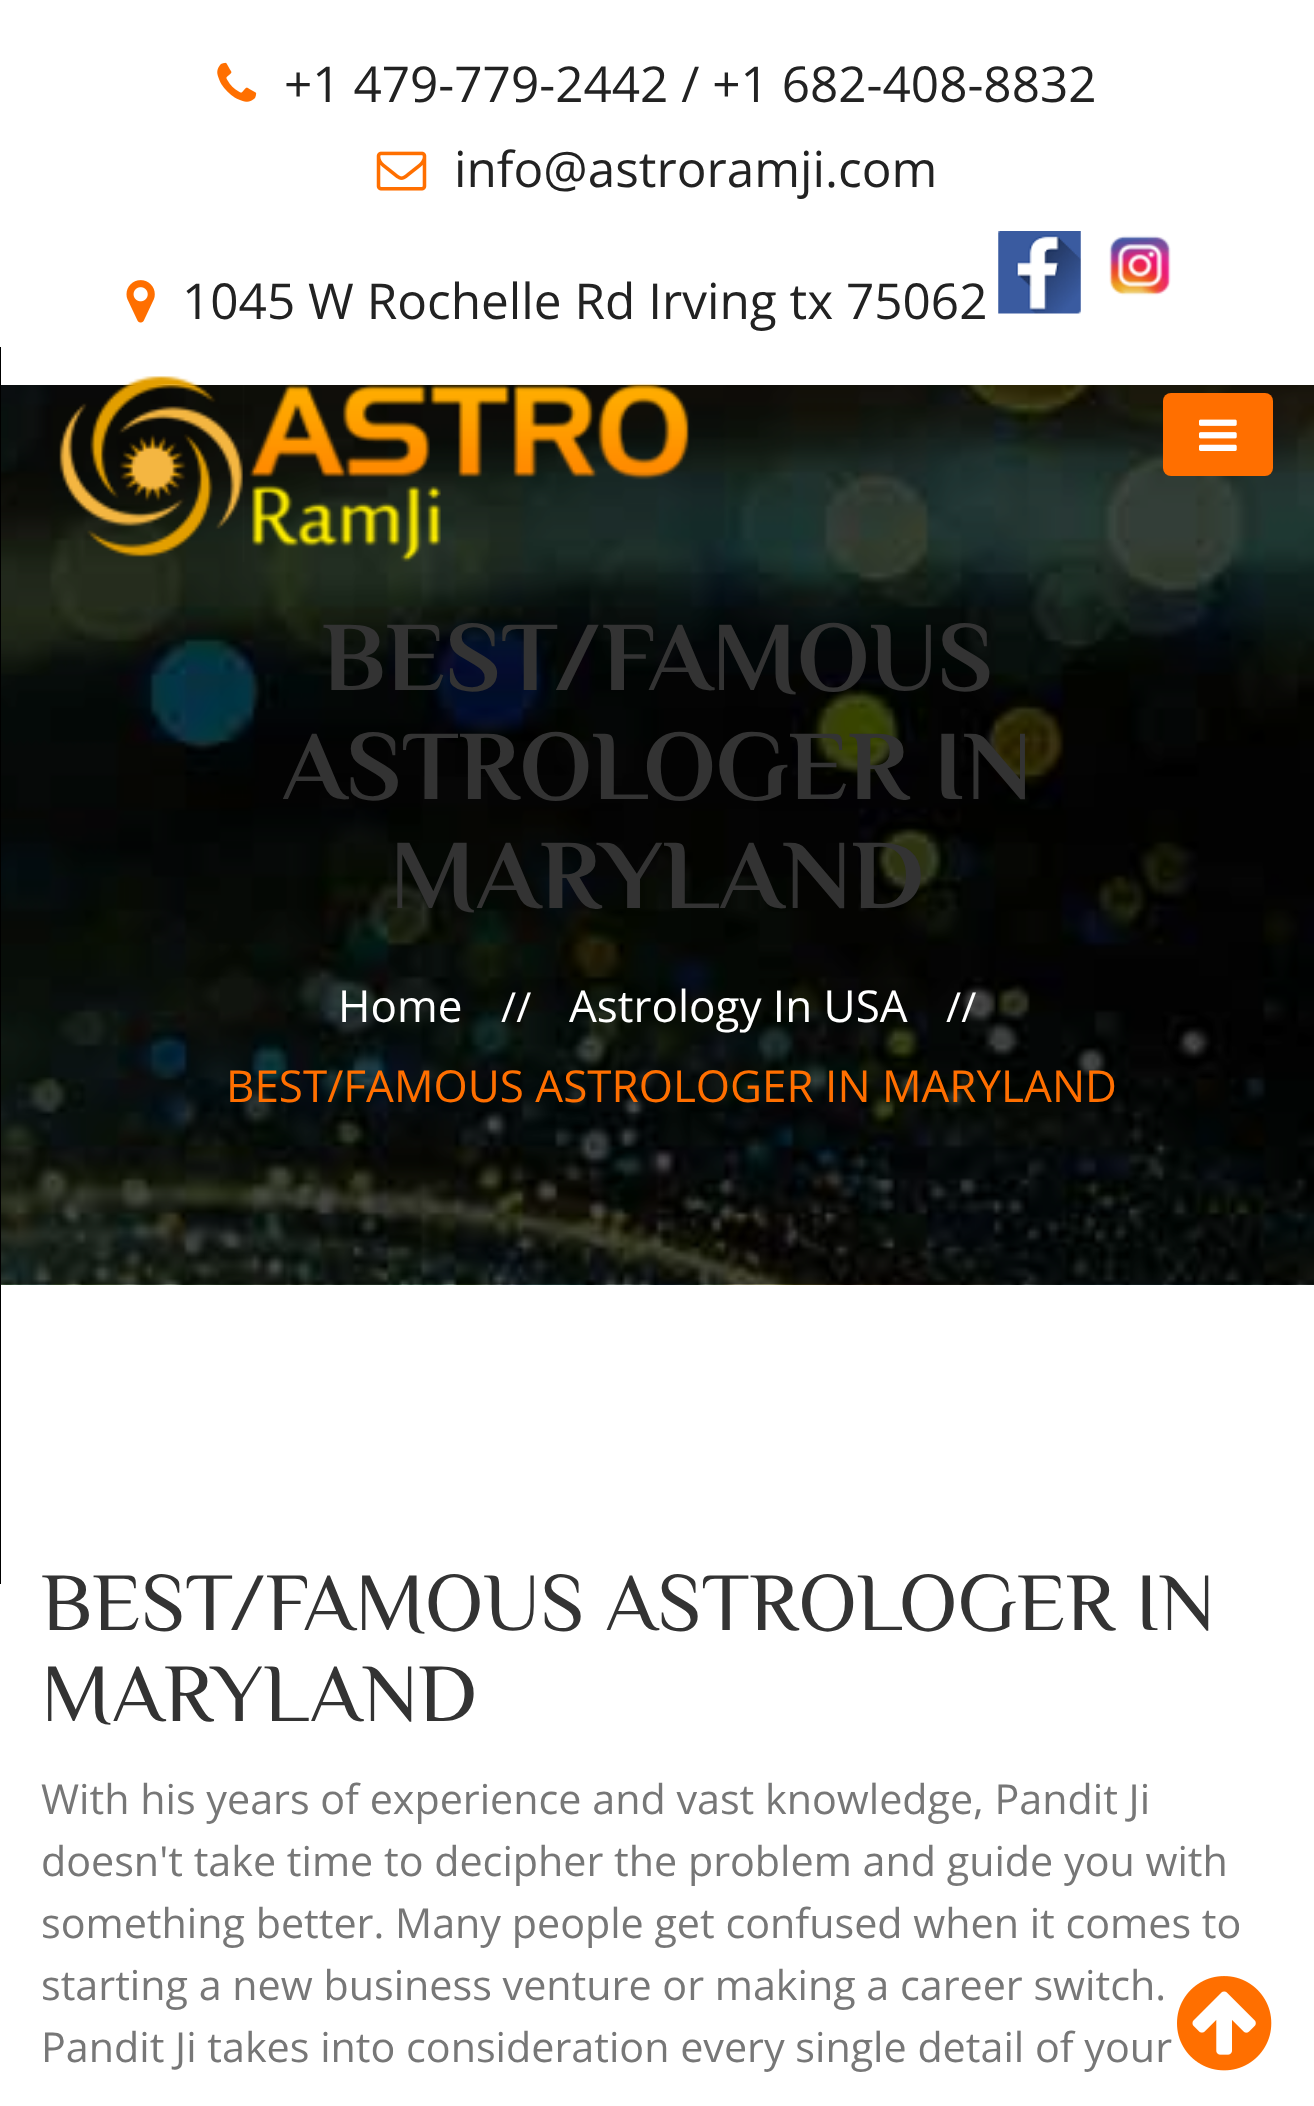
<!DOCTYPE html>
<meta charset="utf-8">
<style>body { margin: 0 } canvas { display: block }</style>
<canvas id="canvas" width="1314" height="2106"></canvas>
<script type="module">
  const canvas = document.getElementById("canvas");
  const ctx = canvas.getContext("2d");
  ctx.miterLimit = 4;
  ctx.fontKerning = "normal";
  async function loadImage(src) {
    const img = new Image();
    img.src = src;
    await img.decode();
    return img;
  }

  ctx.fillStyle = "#ffffff";
  ctx.fillRect(0, 0, 1314, 2106);
  ctx.drawImage(await loadImage("img1.png"), 217, 62, 40, 40);
  ctx.font = "49.5px Open Sans";
  ctx.fillStyle = "#222222";
  ctx.fillText("+1 479-779-2442 / +1 682-408-8832", 284, 102);
  ctx.drawImage(await loadImage("img2.png"), 376, 151, 51, 40);
  ctx.fillText("info@astroramji.com", 454, 187);
  ctx.drawImage(await loadImage("img3.png"), 998, 231, 83, 83);
  ctx.drawImage(await loadImage("img4.png"), 1109, 235, 62, 61);
  ctx.drawImage(await loadImage("img5.png"), 126, 280, 29, 43);
  ctx.fillText("1045 W Rochelle Rd Irving tx 75062", 182, 319);
  ctx.fillStyle = "#000000";
  ctx.fillRect(0, 347, 1, 1237);
  ctx.drawImage(await loadImage("img8.png"), 1, 385, 1313, 900);
  ctx.drawImage(await loadImage("img6.png"), 59, 376, 630, 186);
  ctx.fillStyle = "#ff6f00";
  ctx.beginPath();
  ctx.roundRect(1163, 393, 110, 83, 8);
  ctx.fill();
  ctx.drawImage(await loadImage("img7.png"), 1199, 419, 38, 32);
  ctx.font = "bold 99px Philosopher";
  ctx.fillStyle = "#333333";
  ctx.fillText("BEST/FAMOUS", 322, 690);
  ctx.fillText("ASTROLOGER IN", 282, 799);
  ctx.fillText("MARYLAND", 390, 908);
  ctx.font = "44px Open Sans";
  ctx.fillStyle = "#ffffff";
  ctx.fillText("Home", 338, 1022);
  ctx.font = "41.25px Open Sans";
  ctx.fillText("//", 501, 1022);
  ctx.font = "44px Open Sans";
  ctx.fillText("Astrology In USA", 569, 1022);
  ctx.font = "41.25px Open Sans";
  ctx.fillText("//", 946, 1022);
  ctx.font = "44px Open Sans";
  ctx.fillStyle = "#ff6f00";
  ctx.fillText("BEST/FAMOUS ASTROLOGER IN MARYLAND", 226, 1102);
  ctx.font = "82.5px Philosopher";
  ctx.fillStyle = "#333333";
  ctx.fillText("BEST/FAMOUS ASTROLOGER IN", 41, 1630);
  ctx.fillText("MARYLAND", 41, 1721);
  ctx.font = "41.25px Open Sans";
  ctx.fillStyle = "#777777";
  ctx.fillText("With his years of experience and vast knowledge, Pandit Ji", 41, 1814);
  ctx.fillText("doesn't take time to decipher the problem and guide you with", 41, 1876);
  ctx.fillText("something better. Many people get confused when it comes to", 41, 1938);
  ctx.fillText("starting a new business venture or making a career switch.", 41, 2000);
  ctx.fillText("Pandit Ji takes into consideration every single detail of your", 41, 2062);
  ctx.drawImage(await loadImage("img9.png"), 1177, 1976, 95, 95);
</script>
